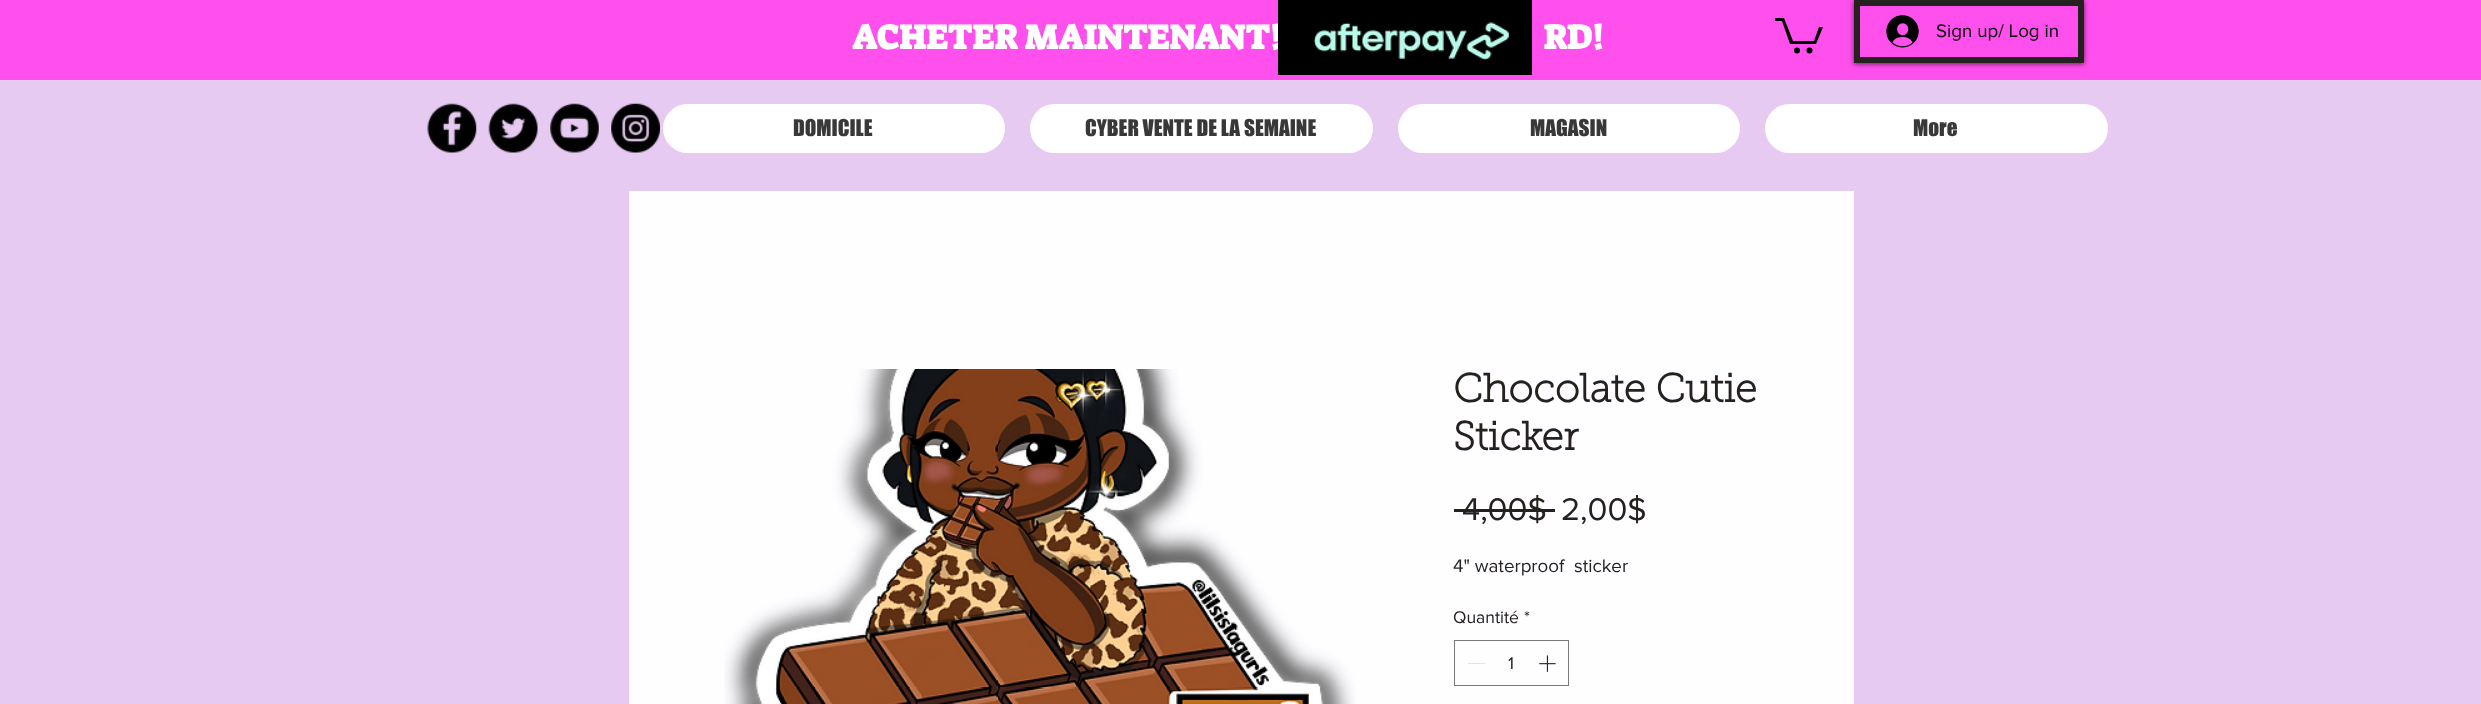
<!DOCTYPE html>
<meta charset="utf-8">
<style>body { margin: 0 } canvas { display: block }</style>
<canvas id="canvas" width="2481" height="704"></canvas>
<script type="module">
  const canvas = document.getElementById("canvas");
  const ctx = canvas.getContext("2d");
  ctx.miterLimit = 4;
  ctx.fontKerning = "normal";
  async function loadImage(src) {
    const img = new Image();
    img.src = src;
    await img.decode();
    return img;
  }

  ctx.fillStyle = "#e7caf2";
  ctx.fillRect(0, 0, 2481, 704);
  ctx.fillStyle = "#ff4fed";
  ctx.fillRect(0, 0, 2481, 80);
  ctx.font = "bold 35px Suez One";
  ctx.fillStyle = "#ffffff";
  ctx.fillText("ACHETER MAINTENANT!", 852, 49);
  ctx.drawImage(await loadImage("img1.png"), 1278, 0, 255, 75);
  ctx.fillStyle = "#000000";
  ctx.beginPath();
  ctx.moveTo(1823, 27);
  ctx.lineTo(1816, 44);
  ctx.lineTo(1790, 44);
  ctx.lineTo(1782, 21);
  ctx.lineTo(1775, 21);
  ctx.lineTo(1775, 18);
  ctx.lineTo(1784, 18);
  ctx.lineTo(1793, 41);
  ctx.lineTo(1814, 41);
  ctx.lineTo(1819, 27);
  ctx.fill();
  ctx.beginPath();
  ctx.arc(1809.5, 50.5, 3, 0, Math.PI * 2);
  ctx.fill();
  ctx.beginPath();
  ctx.arc(1797, 50.5, 3, 0, Math.PI * 2);
  ctx.fill();
  ctx.fillStyle = "#ffffff";
  ctx.fillText("RD!", 1543, 49);
  ctx.save();
  ctx.beginPath();
  ctx.moveTo(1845, 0);
  ctx.lineTo(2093, 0);
  ctx.lineTo(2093, 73);
  ctx.lineTo(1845, 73);
  ctx.closePath();
  ctx.moveTo(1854, 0);
  ctx.lineTo(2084, 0);
  ctx.lineTo(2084, 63);
  ctx.lineTo(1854, 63);
  ctx.closePath();
  ctx.clip("evenodd");
  ctx.fillStyle = "rgba(0, 0, 0, 0.6)";
  ctx.filter = "blur(2.5px)";
  ctx.beginPath();
  ctx.rect(1854, 1, 230, 63);
  ctx.fill();
  ctx.filter = "none";
  ctx.restore();
  ctx.strokeStyle = "#24211f";
  ctx.lineWidth = 6;
  ctx.strokeRect(1857, 3, 224, 57);
  ctx.drawImage(await loadImage("img2.png"), 1886, 15, 33, 33);
  ctx.font = "18.75px 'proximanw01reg'";
  ctx.fillStyle = "#000000";
  ctx.fillText("Sign up/ Log in", 1936, 37);
  ctx.drawImage(await loadImage("img3.png"), 427, 103, 50, 50);
  ctx.drawImage(await loadImage("img4.png"), 488, 103, 50, 50);
  ctx.drawImage(await loadImage("img5.png"), 550, 103, 49, 50);
  ctx.drawImage(await loadImage("img6.png"), 611, 103, 49, 50);
  ctx.fillStyle = "#ffffff";
  ctx.beginPath();
  ctx.roundRect(663, 104, 342, 49, 24.5);
  ctx.fill();
  ctx.font = "21.25px 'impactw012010'";
  ctx.fillStyle = "#383838";
  ctx.fillText("DOMICILE", 793, 136);
  ctx.fillStyle = "#ffffff";
  ctx.beginPath();
  ctx.roundRect(1030, 104, 343, 49, 24.5);
  ctx.fill();
  ctx.fillStyle = "#383838";
  ctx.fillText("CYBER VENTE DE LA SEMAINE", 1085, 136);
  ctx.fillStyle = "#ffffff";
  ctx.beginPath();
  ctx.roundRect(1398, 104, 342, 49, 24.5);
  ctx.fill();
  ctx.fillStyle = "#383838";
  ctx.fillText("MAGASIN", 1530, 136);
  ctx.fillStyle = "#ffffff";
  ctx.beginPath();
  ctx.roundRect(1765, 104, 343, 49, 24.5);
  ctx.fill();
  ctx.fillStyle = "#383838";
  ctx.fillText("More", 1913, 136);
  ctx.fillStyle = "#fefdff";
  ctx.fillRect(629, 191, 1225, 513);
  ctx.drawImage(await loadImage("img7.png"), 724, 369, 631, 335);
  ctx.font = "bold 40px 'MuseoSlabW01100'";
  ctx.fillStyle = "#24211f";
  ctx.fillText("Chocolate Cutie", 1453, 402);
  ctx.fillText("Sticker", 1453, 450);
  ctx.font = "32.5px 'proximanw01reg'";
  ctx.fillText("4,00$", 1462, 520);
  ctx.fillRect(1454, 509, 101, 3);
  ctx.fillText("2,00$", 1561, 520);
  ctx.font = "18.75px 'proximanw01reg'";
  ctx.fillText("4\" waterproof  sticker", 1453, 572);
  ctx.font = "17.5px 'proximanw01reg'";
  ctx.fillText("Quantité", 1453, 623);
  ctx.fillText("*", 1524, 623);
  ctx.strokeStyle = "#7c7a79";
  ctx.lineWidth = 1;
  ctx.strokeRect(1454.5, 640.5, 114, 45);
  ctx.fillStyle = "#e3e3e3";
  ctx.fillRect(1468, 663, 17, 1);
  ctx.fillStyle = "#24211f";
  ctx.fillText("1", 1508, 669);
  ctx.drawImage(await loadImage("img8.png"), 1539, 655, 17, 17);
</script>
